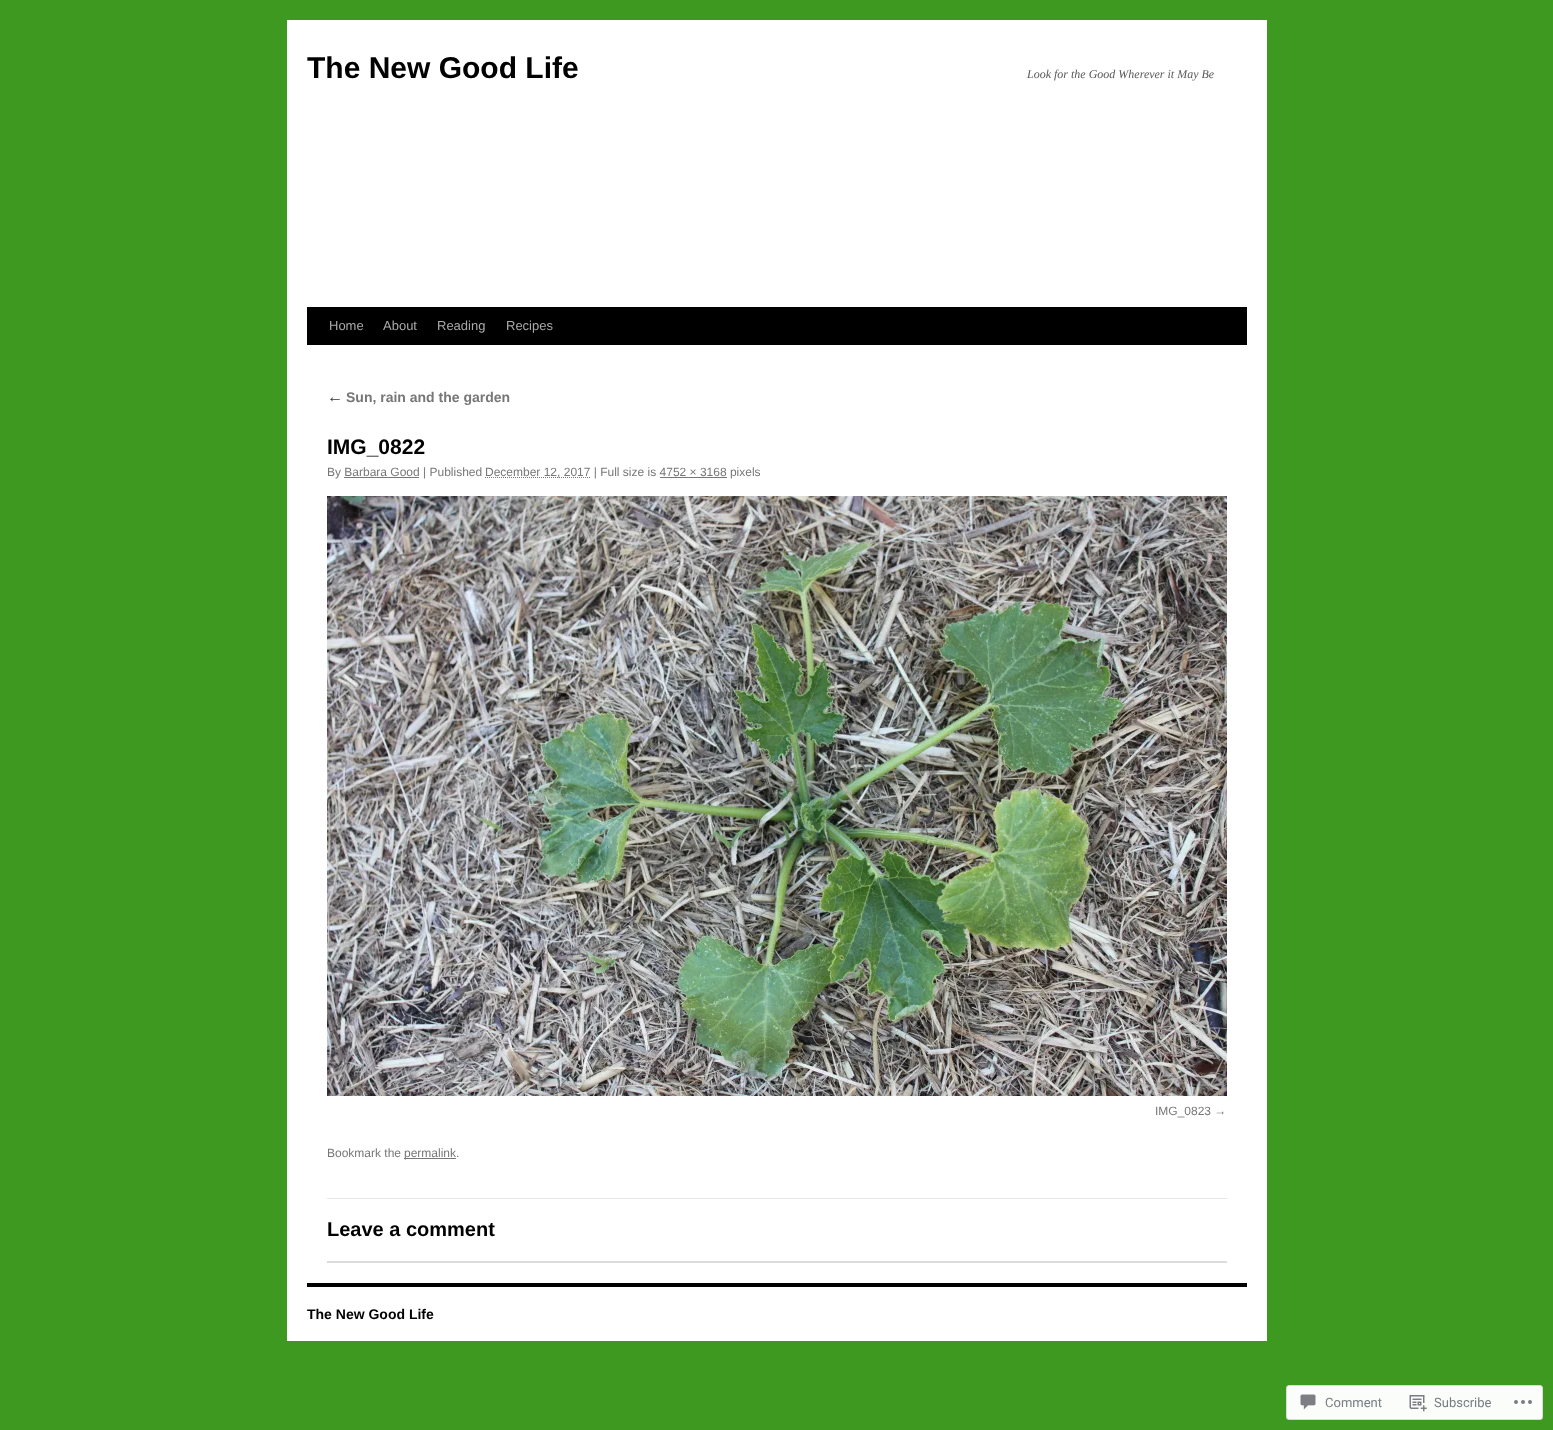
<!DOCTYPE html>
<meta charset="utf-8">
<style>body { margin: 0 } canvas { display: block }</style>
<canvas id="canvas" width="1553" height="1430"></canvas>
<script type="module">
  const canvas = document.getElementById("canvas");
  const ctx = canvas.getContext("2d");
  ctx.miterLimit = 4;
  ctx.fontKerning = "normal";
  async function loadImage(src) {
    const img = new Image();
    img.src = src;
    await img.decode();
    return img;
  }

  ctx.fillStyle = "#3e9920";
  ctx.fillRect(0, 0, 1553, 1430);
  ctx.fillStyle = "#ffffff";
  ctx.fillRect(287, 20, 980, 1321);
  ctx.font = "bold 30px Liberation Sans";
  ctx.fillStyle = "#000000";
  ctx.fillText("The New Good Life", 307, 78);
  ctx.font = "italic 12px Liberation Serif";
  ctx.fillStyle = "#595959";
  ctx.fillText("Look for the Good Wherever it May Be", 1027, 78);
  ctx.fillStyle = "#000000";
  ctx.fillRect(307, 307, 940, 38);
  ctx.font = "13px Liberation Sans";
  ctx.fillStyle = "#aaaaaa";
  ctx.fillText("Home", 329, 330);
  ctx.fillText("About", 383, 330);
  ctx.fillText("Reading", 437, 330);
  ctx.fillText("Recipes", 506, 330);
  ctx.font = "italic 16px Liberation Serif";
  ctx.fillStyle = "#333333";
  ctx.fillText("←", 327, 402);
  ctx.font = "bold 14px Liberation Sans";
  ctx.fillStyle = "#777777";
  ctx.fillText("Sun, rain and the garden", 346, 402);
  ctx.font = "bold 21px Liberation Sans";
  ctx.fillStyle = "#000000";
  ctx.fillText("IMG_0822", 327, 454);
  ctx.font = "12px Liberation Sans";
  ctx.fillStyle = "#777777";
  ctx.fillText("By Barbara Good | Published", 327, 476);
  ctx.beginPath();
  ctx.moveTo(485, 477.5);
  ctx.lineTo(590.5, 477.5);
  ctx.strokeStyle = "#777777";
  ctx.setLineDash([1, 1]);
  ctx.stroke();
  ctx.fillText("December 12, 2017 | Full size is 4752 × 3168 pixels", 485, 476);
  ctx.fillRect(344, 477, 75, 1);
  ctx.fillRect(660, 477, 67, 1);
  ctx.drawImage(await loadImage("img1.png"), 327, 496, 900, 600);
  ctx.fillText("IMG_0823 →", 1155, 1115);
  ctx.fillText("Bookmark the", 327, 1157);
  ctx.fillRect(404, 1158, 52, 1);
  ctx.fillText("permalink.", 404, 1157);
  ctx.fillStyle = "#e7e7e7";
  ctx.fillRect(327, 1198, 900, 1);
  ctx.font = "bold 20px Liberation Sans";
  ctx.fillStyle = "#000000";
  ctx.fillText("Leave a comment", 327, 1236);
  ctx.fillStyle = "#dcdcde";
  ctx.fillRect(327, 1261, 900, 2);
  ctx.fillStyle = "#000000";
  ctx.fillRect(307, 1283, 940, 4);
  ctx.font = "bold 14px Liberation Sans";
  ctx.fillText("The New Good Life", 307, 1319);
  ctx.fillStyle = "#fbfdfb";
  ctx.beginPath();
  ctx.roundRect(1286.5, 1385.5, 256, 34, 2.5);
  ctx.fill();
  ctx.strokeStyle = "#d9dbda";
  ctx.setLineDash([]);
  ctx.stroke();
  ctx.drawImage(await loadImage("img2.png"), 1300, 1394, 16, 16);
  ctx.font = "13px Roboto";
  ctx.fillStyle = "#777d80";
  ctx.fillText("Comment", 1325, 1407);
  ctx.drawImage(await loadImage("img3.png"), 1409, 1395, 18, 17);
  ctx.fillText("Subscribe", 1434, 1407);
  ctx.drawImage(await loadImage("img4.png"), 1514, 1400, 18, 4);
</script>
